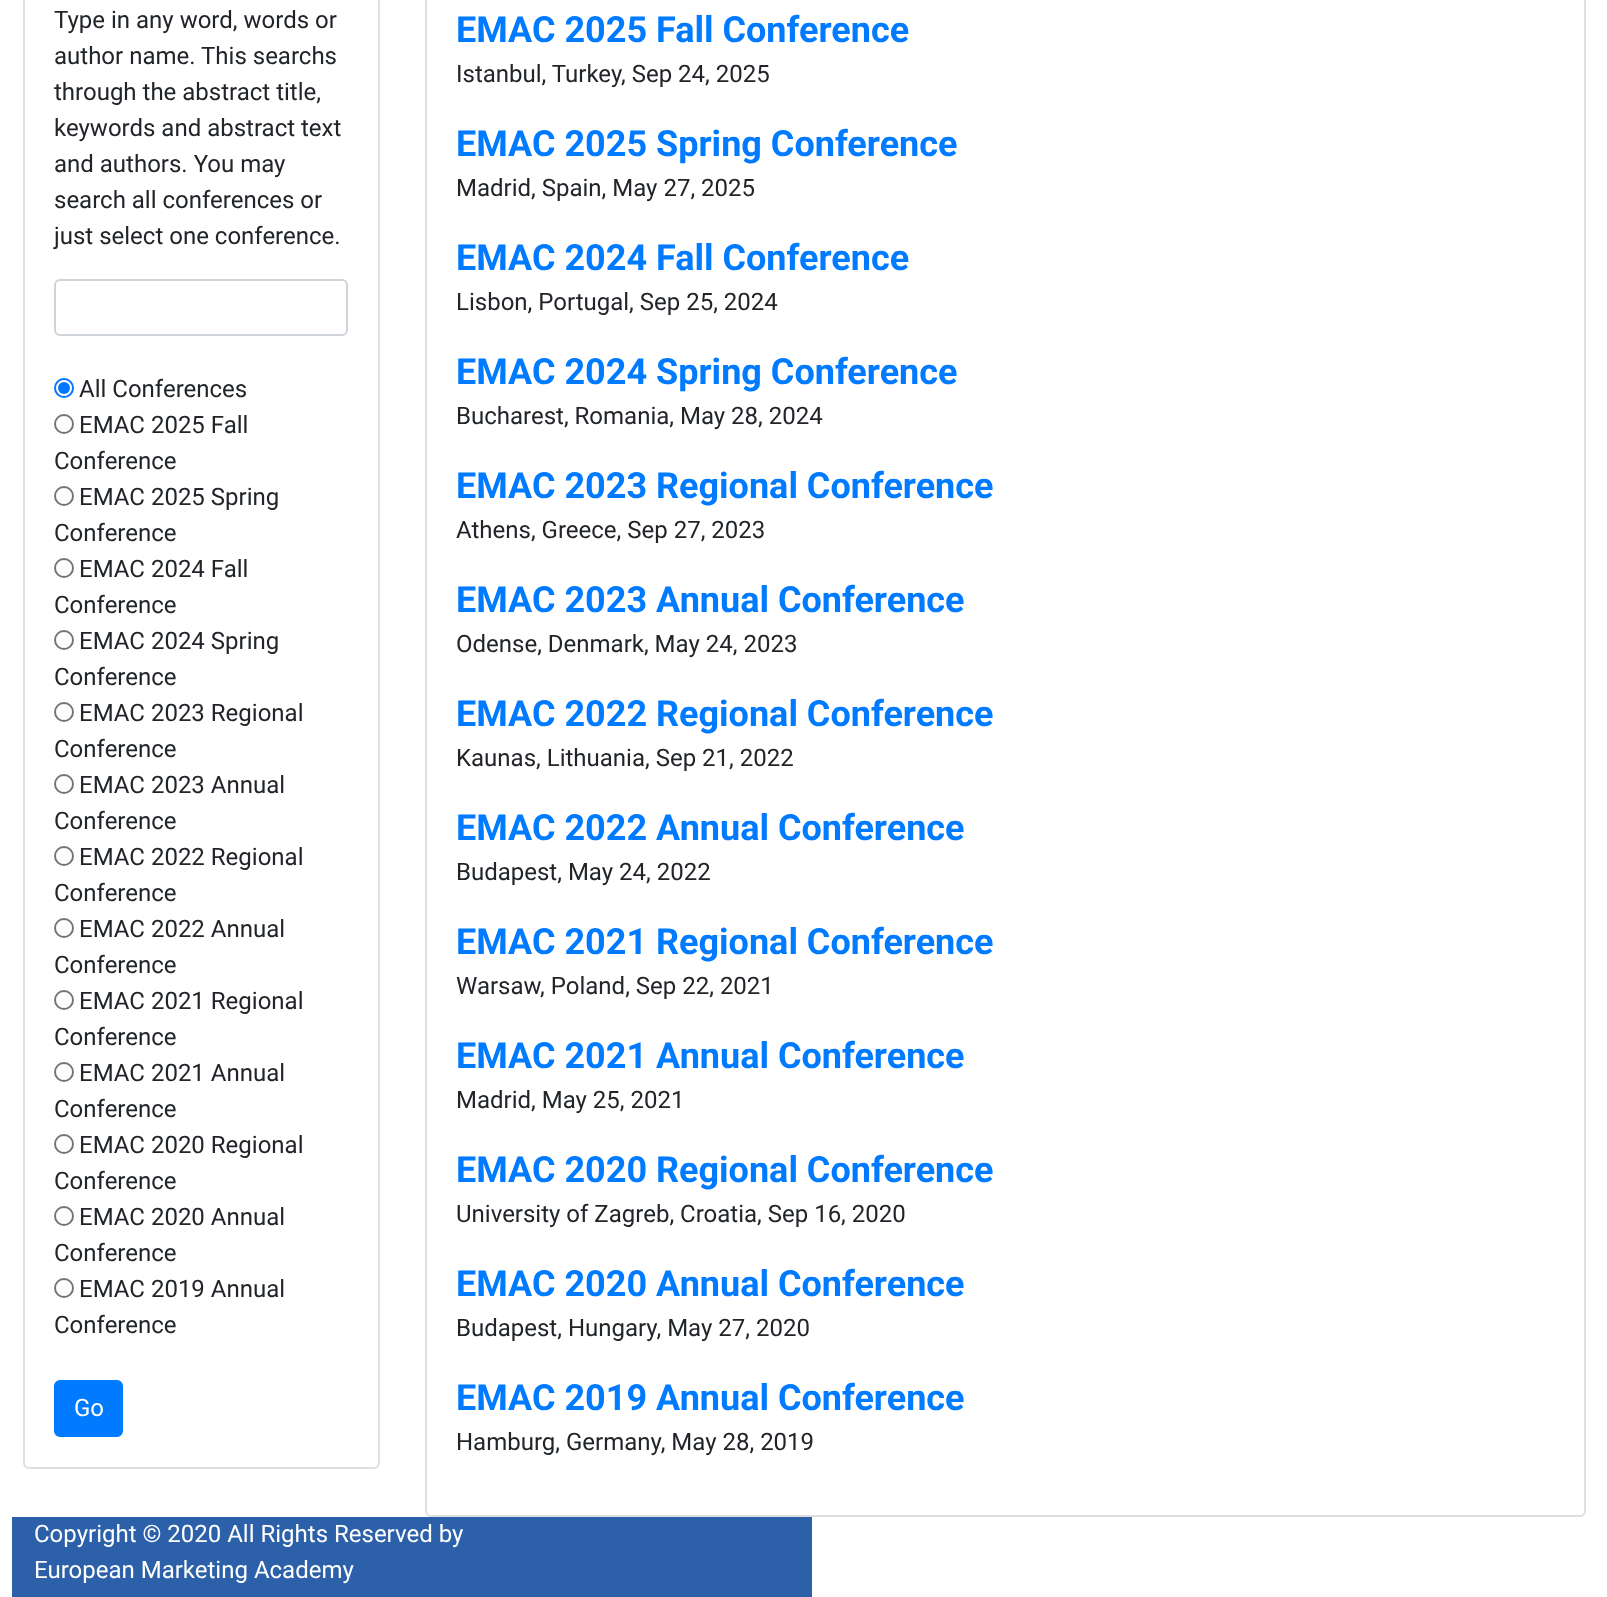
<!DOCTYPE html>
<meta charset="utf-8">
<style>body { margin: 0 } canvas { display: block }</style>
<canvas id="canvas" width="1607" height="1597"></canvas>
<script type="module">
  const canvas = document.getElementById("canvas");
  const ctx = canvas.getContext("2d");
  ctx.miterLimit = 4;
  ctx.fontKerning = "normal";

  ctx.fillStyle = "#ffffff";
  ctx.fillRect(0, 0, 1607, 1597);
  ctx.beginPath();
  ctx.roundRect(24, -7, 355, 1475, 5);
  ctx.strokeStyle = "#dfdfdf";
  ctx.lineWidth = 2;
  ctx.stroke();
  ctx.font = "24px Roboto";
  ctx.fillStyle = "#212529";
  ctx.fillText("Type in any word, words or", 54, 28);
  ctx.fillText("author name. This searchs", 54, 64);
  ctx.fillText("through the abstract title,", 54, 100);
  ctx.fillText("keywords and abstract text", 54, 136);
  ctx.fillText("and authors. You may", 54, 172);
  ctx.fillText("search all conferences or", 54, 208);
  ctx.fillText("just select one conference.", 54, 244);
  ctx.beginPath();
  ctx.roundRect(55, 280, 292, 55, 5);
  ctx.strokeStyle = "#ced4da";
  ctx.stroke();
  ctx.beginPath();
  ctx.arc(64, 388, 9, 0, Math.PI * 2);
  ctx.strokeStyle = "#0075ff";
  ctx.stroke();
  ctx.fillStyle = "#0075ff";
  ctx.beginPath();
  ctx.arc(64, 388, 6, 0, Math.PI * 2);
  ctx.fill();
  ctx.fillStyle = "#212529";
  ctx.fillText("All Conferences", 79, 397);
  ctx.beginPath();
  ctx.arc(64, 424, 9, 0, Math.PI * 2);
  ctx.strokeStyle = "#767676";
  ctx.stroke();
  ctx.fillText("EMAC 2025 Fall", 79, 433);
  ctx.fillText("Conference", 54, 469);
  ctx.beginPath();
  ctx.arc(64, 496, 9, 0, Math.PI * 2);
  ctx.stroke();
  ctx.fillText("EMAC 2025 Spring", 79, 505);
  ctx.fillText("Conference", 54, 541);
  ctx.beginPath();
  ctx.arc(64, 568, 9, 0, Math.PI * 2);
  ctx.stroke();
  ctx.fillText("EMAC 2024 Fall", 79, 577);
  ctx.fillText("Conference", 54, 613);
  ctx.beginPath();
  ctx.arc(64, 640, 9, 0, Math.PI * 2);
  ctx.stroke();
  ctx.fillText("EMAC 2024 Spring", 79, 649);
  ctx.fillText("Conference", 54, 685);
  ctx.beginPath();
  ctx.arc(64, 712, 9, 0, Math.PI * 2);
  ctx.stroke();
  ctx.fillText("EMAC 2023 Regional", 79, 721);
  ctx.fillText("Conference", 54, 757);
  ctx.beginPath();
  ctx.arc(64, 784, 9, 0, Math.PI * 2);
  ctx.stroke();
  ctx.fillText("EMAC 2023 Annual", 79, 793);
  ctx.fillText("Conference", 54, 829);
  ctx.beginPath();
  ctx.arc(64, 856, 9, 0, Math.PI * 2);
  ctx.stroke();
  ctx.fillText("EMAC 2022 Regional", 79, 865);
  ctx.fillText("Conference", 54, 901);
  ctx.beginPath();
  ctx.arc(64, 928, 9, 0, Math.PI * 2);
  ctx.stroke();
  ctx.fillText("EMAC 2022 Annual", 79, 937);
  ctx.fillText("Conference", 54, 973);
  ctx.beginPath();
  ctx.arc(64, 1000, 9, 0, Math.PI * 2);
  ctx.stroke();
  ctx.fillText("EMAC 2021 Regional", 79, 1009);
  ctx.fillText("Conference", 54, 1045);
  ctx.beginPath();
  ctx.arc(64, 1072, 9, 0, Math.PI * 2);
  ctx.stroke();
  ctx.fillText("EMAC 2021 Annual", 79, 1081);
  ctx.fillText("Conference", 54, 1117);
  ctx.beginPath();
  ctx.arc(64, 1144, 9, 0, Math.PI * 2);
  ctx.stroke();
  ctx.fillText("EMAC 2020 Regional", 79, 1153);
  ctx.fillText("Conference", 54, 1189);
  ctx.beginPath();
  ctx.arc(64, 1216, 9, 0, Math.PI * 2);
  ctx.stroke();
  ctx.fillText("EMAC 2020 Annual", 79, 1225);
  ctx.fillText("Conference", 54, 1261);
  ctx.beginPath();
  ctx.arc(64, 1288, 9, 0, Math.PI * 2);
  ctx.stroke();
  ctx.fillText("EMAC 2019 Annual", 79, 1297);
  ctx.fillText("Conference", 54, 1333);
  ctx.fillStyle = "#007bff";
  ctx.beginPath();
  ctx.roundRect(55, 1381, 67, 55, 5);
  ctx.fill();
  ctx.strokeStyle = "#007bff";
  ctx.stroke();
  ctx.fillStyle = "#ffffff";
  ctx.fillText("Go", 74, 1416);
  ctx.beginPath();
  ctx.roundRect(426, -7, 1159, 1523, 5);
  ctx.strokeStyle = "#dfdfdf";
  ctx.stroke();
  ctx.font = "bold 36px Roboto";
  ctx.fillStyle = "#007bff";
  ctx.fillText("EMAC 2025 Fall Conference", 456, 42);
  ctx.font = "24px Roboto";
  ctx.fillStyle = "#212529";
  ctx.fillText("Istanbul, Turkey, Sep 24, 2025", 456, 82);
  ctx.font = "bold 36px Roboto";
  ctx.fillStyle = "#007bff";
  ctx.fillText("EMAC 2025 Spring Conference", 456, 156);
  ctx.font = "24px Roboto";
  ctx.fillStyle = "#212529";
  ctx.fillText("Madrid, Spain, May 27, 2025", 456, 196);
  ctx.font = "bold 36px Roboto";
  ctx.fillStyle = "#007bff";
  ctx.fillText("EMAC 2024 Fall Conference", 456, 270);
  ctx.font = "24px Roboto";
  ctx.fillStyle = "#212529";
  ctx.fillText("Lisbon, Portugal, Sep 25, 2024", 456, 310);
  ctx.font = "bold 36px Roboto";
  ctx.fillStyle = "#007bff";
  ctx.fillText("EMAC 2024 Spring Conference", 456, 384);
  ctx.font = "24px Roboto";
  ctx.fillStyle = "#212529";
  ctx.fillText("Bucharest, Romania, May 28, 2024", 456, 424);
  ctx.font = "bold 36px Roboto";
  ctx.fillStyle = "#007bff";
  ctx.fillText("EMAC 2023 Regional Conference", 456, 498);
  ctx.font = "24px Roboto";
  ctx.fillStyle = "#212529";
  ctx.fillText("Athens, Greece, Sep 27, 2023", 456, 538);
  ctx.font = "bold 36px Roboto";
  ctx.fillStyle = "#007bff";
  ctx.fillText("EMAC 2023 Annual Conference", 456, 612);
  ctx.font = "24px Roboto";
  ctx.fillStyle = "#212529";
  ctx.fillText("Odense, Denmark, May 24, 2023", 456, 652);
  ctx.font = "bold 36px Roboto";
  ctx.fillStyle = "#007bff";
  ctx.fillText("EMAC 2022 Regional Conference", 456, 726);
  ctx.font = "24px Roboto";
  ctx.fillStyle = "#212529";
  ctx.fillText("Kaunas, Lithuania, Sep 21, 2022", 456, 766);
  ctx.font = "bold 36px Roboto";
  ctx.fillStyle = "#007bff";
  ctx.fillText("EMAC 2022 Annual Conference", 456, 840);
  ctx.font = "24px Roboto";
  ctx.fillStyle = "#212529";
  ctx.fillText("Budapest, May 24, 2022", 456, 880);
  ctx.font = "bold 36px Roboto";
  ctx.fillStyle = "#007bff";
  ctx.fillText("EMAC 2021 Regional Conference", 456, 954);
  ctx.font = "24px Roboto";
  ctx.fillStyle = "#212529";
  ctx.fillText("Warsaw, Poland, Sep 22, 2021", 456, 994);
  ctx.font = "bold 36px Roboto";
  ctx.fillStyle = "#007bff";
  ctx.fillText("EMAC 2021 Annual Conference", 456, 1068);
  ctx.font = "24px Roboto";
  ctx.fillStyle = "#212529";
  ctx.fillText("Madrid, May 25, 2021", 456, 1108);
  ctx.font = "bold 36px Roboto";
  ctx.fillStyle = "#007bff";
  ctx.fillText("EMAC 2020 Regional Conference", 456, 1182);
  ctx.font = "24px Roboto";
  ctx.fillStyle = "#212529";
  ctx.fillText("University of Zagreb, Croatia, Sep 16, 2020", 456, 1222);
  ctx.font = "bold 36px Roboto";
  ctx.fillStyle = "#007bff";
  ctx.fillText("EMAC 2020 Annual Conference", 456, 1296);
  ctx.font = "24px Roboto";
  ctx.fillStyle = "#212529";
  ctx.fillText("Budapest, Hungary, May 27, 2020", 456, 1336);
  ctx.font = "bold 36px Roboto";
  ctx.fillStyle = "#007bff";
  ctx.fillText("EMAC 2019 Annual Conference", 456, 1410);
  ctx.font = "24px Roboto";
  ctx.fillStyle = "#212529";
  ctx.fillText("Hamburg, Germany, May 28, 2019", 456, 1450);
  ctx.fillStyle = "#2c61aa";
  ctx.fillRect(12, 1517, 800, 80);
  ctx.fillStyle = "#ffffff";
  ctx.fillText("Copyright © 2020 All Rights Reserved by", 34, 1542);
  ctx.fillText("European Marketing Academy", 34, 1578);
</script>
